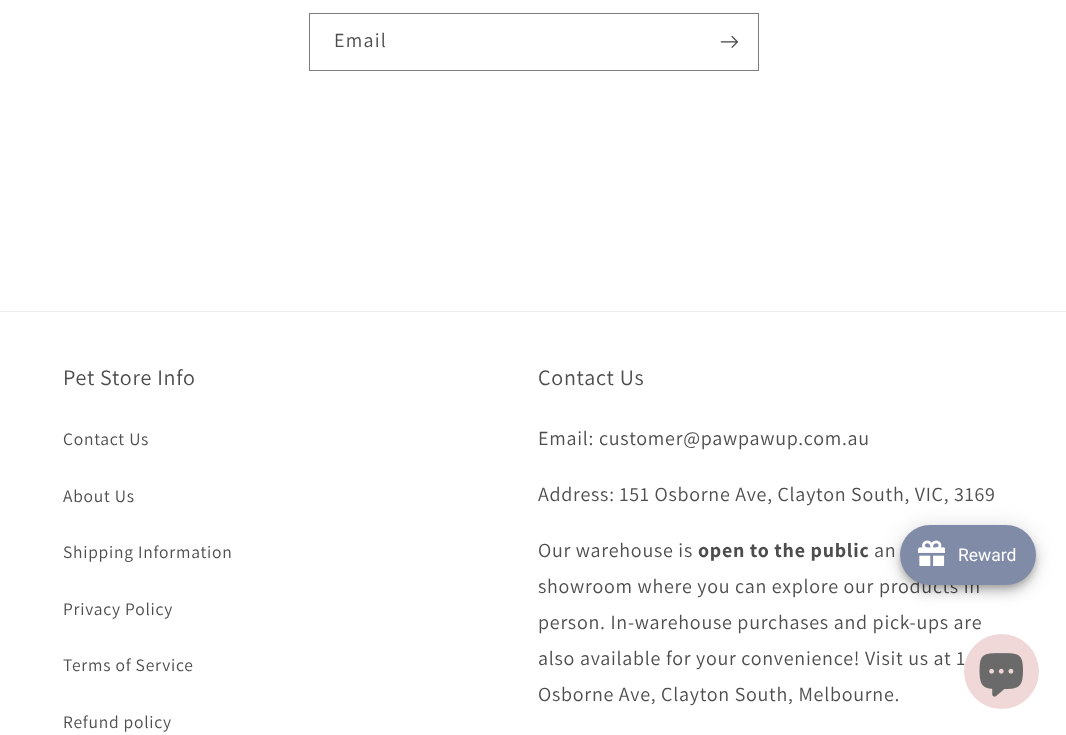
<!DOCTYPE html>
<meta charset="utf-8">
<style>body { margin: 0 } canvas { display: block }</style>
<canvas id="canvas" width="1066" height="735"></canvas>
<script type="module">
  const canvas = document.getElementById("canvas");
  const ctx = canvas.getContext("2d");
  ctx.miterLimit = 4;
  ctx.fontKerning = "normal";
  async function loadImage(src) {
    const img = new Image();
    img.src = src;
    await img.decode();
    return img;
  }

  ctx.fillStyle = "#ffffff";
  ctx.fillRect(0, 0, 1066, 735);
  ctx.strokeStyle = "#7d7d7d";
  ctx.strokeRect(309.5, 13.5, 449, 57);
  ctx.letterSpacing = "1.25px";
  ctx.font = "20px Assistant";
  ctx.fillStyle = "#4d4d4d";
  ctx.fillText("Email", 334, 47);
  ctx.drawImage(await loadImage("img1.png"), 720, 35, 18, 13);
  ctx.fillStyle = "#ececec";
  ctx.fillRect(0, 311, 1066, 1);
  ctx.letterSpacing = "0.75px";
  ctx.font = "22px Assistant";
  ctx.fillStyle = "#4d4d4d";
  ctx.fillText("Pet Store Info", 63, 385);
  ctx.font = "17.5px Assistant";
  ctx.fillText("Contact Us", 63, 445);
  ctx.fillText("About Us", 63, 502);
  ctx.fillText("Shipping Information", 63, 558);
  ctx.fillText("Privacy Policy", 63, 615);
  ctx.fillText("Terms of Service", 63, 671);
  ctx.fillText("Refund policy", 63, 728);
  ctx.font = "22px Assistant";
  ctx.fillText("Contact Us", 538, 385);
  ctx.font = "20px Assistant";
  ctx.fillText("Email: customer@pawpawup.com.au", 538, 445);
  ctx.fillText("Address: 151 Osborne Ave, Clayton South, VIC, 3169", 538, 501);
  ctx.fillText("Our warehouse is", 538, 557);
  ctx.font = "bold 20px Assistant";
  ctx.fillText("open to the public", 698, 557);
  ctx.font = "20px Assistant";
  ctx.fillText("an", 874, 557);
  ctx.fillText("showroom where you can explore our products in", 538, 593);
  ctx.fillText("person. In-warehouse purchases and pick-ups are", 538, 629);
  ctx.fillText("also available for your convenience! Visit us at 1", 538, 665);
  ctx.fillText("Osborne Ave, Clayton South, Melbourne.", 538, 701);
  ctx.fillStyle = "rgba(0, 0, 0, 0.12)";
  ctx.filter = "blur(11px)";
  ctx.beginPath();
  ctx.roundRect(900, 526, 136, 60, 30);
  ctx.fill();
  ctx.filter = "none";
  ctx.fillStyle = "rgba(0, 0, 0, 0.14)";
  ctx.filter = "blur(6px)";
  ctx.beginPath();
  ctx.roundRect(900, 533, 136, 60, 30);
  ctx.fill();
  ctx.filter = "none";
  ctx.fillStyle = "rgba(0, 0, 0, 0.2)";
  ctx.filter = "blur(3px)";
  ctx.beginPath();
  ctx.roundRect(901, 530, 134, 58, 29);
  ctx.fill();
  ctx.filter = "none";
  ctx.fillStyle = "#808ba7";
  ctx.beginPath();
  ctx.roundRect(900, 525, 136, 60, 30);
  ctx.fill();
  ctx.drawImage(await loadImage("img2.png"), 918, 540, 27, 26);
  ctx.letterSpacing = "0px";
  ctx.font = "17.5px Roboto";
  ctx.fillStyle = "#ffffff";
  ctx.fillText("Reward", 958, 561);
  ctx.fillStyle = "#f1d8d8";
  ctx.beginPath();
  ctx.arc(1001.5, 671.5, 37.5, 0, Math.PI * 2);
  ctx.fill();
  ctx.drawImage(await loadImage("img3.png"), 979, 653, 44, 44);
</script>
